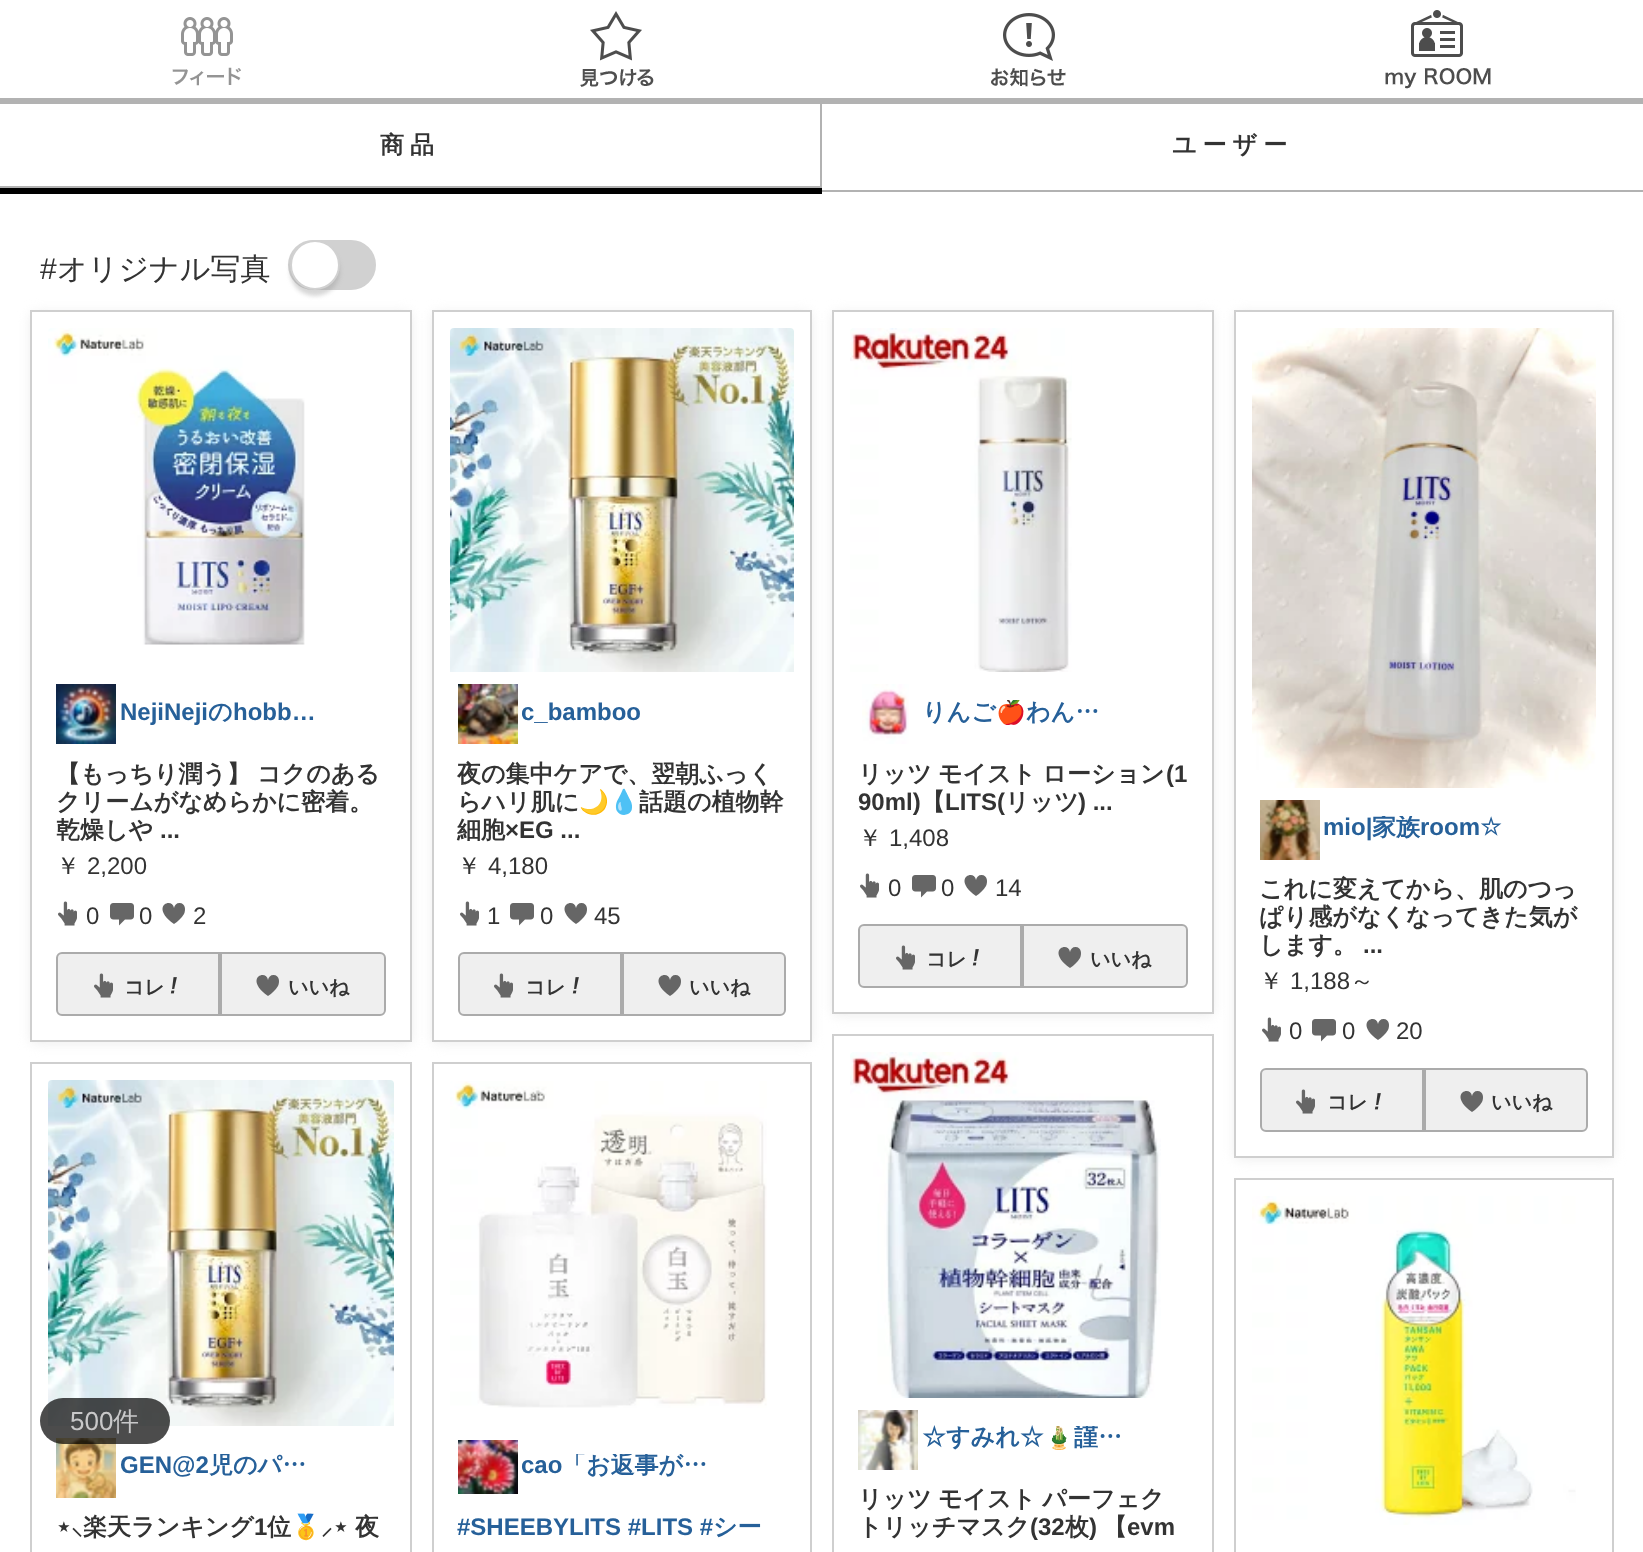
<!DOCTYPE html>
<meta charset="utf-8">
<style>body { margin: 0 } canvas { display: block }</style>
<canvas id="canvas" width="1643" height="1552"></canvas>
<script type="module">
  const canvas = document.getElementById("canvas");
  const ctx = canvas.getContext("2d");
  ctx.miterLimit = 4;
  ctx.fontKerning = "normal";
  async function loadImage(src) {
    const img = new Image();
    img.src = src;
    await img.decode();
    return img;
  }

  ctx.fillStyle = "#ffffff";
  ctx.fillRect(0, 0, 1643, 1552);
  ctx.drawImage(await loadImage("img1.png"), 580, 11, 74, 76);
  ctx.fillStyle = "#b2b2b2";
  ctx.fillRect(822, 98, 821, 6);
  ctx.drawImage(await loadImage("img2.png"), 1385, 10, 106, 79);
  ctx.fillRect(0, 98, 822, 6);
  ctx.drawImage(await loadImage("img3.png"), 172, 17, 69, 69);
  ctx.drawImage(await loadImage("img4.png"), 991, 13, 75, 74);
  ctx.fillStyle = "#000000";
  ctx.fillRect(0, 188, 822, 6);
  ctx.fillStyle = "#b2b2b2";
  ctx.fillRect(820, 104, 2, 84);
  ctx.fillRect(0, 186, 822, 2);
  ctx.letterSpacing = "6px";
  ctx.font = "bold 24px WenQuanYi Zen Hei";
  ctx.fillStyle = "#333333";
  ctx.fillText("商品", 380, 153);
  ctx.fillStyle = "#b2b2b2";
  ctx.fillRect(822, 190, 821, 2);
  ctx.fillStyle = "#333333";
  ctx.fillText("ユーザー", 1172, 153);
  ctx.letterSpacing = "0px";
  ctx.font = "30px Liberation Sans";
  ctx.fillText("#", 40, 279);
  ctx.font = "500 30px WenQuanYi Zen Hei";
  ctx.fillText("オリジナル写真", 57, 279);
  ctx.fillStyle = "#d1d1d1";
  ctx.beginPath();
  ctx.roundRect(289, 241, 86, 48, 24);
  ctx.fill();
  ctx.strokeStyle = "#d1d1d1";
  ctx.lineWidth = 2;
  ctx.stroke();
  ctx.fillStyle = "rgba(153, 153, 153, 0.4)";
  ctx.filter = "blur(2px)";
  ctx.beginPath();
  ctx.roundRect(290, 246, 50, 50, 25);
  ctx.fill();
  ctx.filter = "none";
  ctx.fillStyle = "#ffffff";
  ctx.beginPath();
  ctx.arc(315, 265, 24, 0, Math.PI * 2);
  ctx.fill();
  ctx.stroke();
  ctx.fillStyle = "#efefef";
  ctx.filter = "blur(6px)";
  ctx.beginPath();
  ctx.roundRect(30, 312, 382, 732, 6);
  ctx.fill();
  ctx.filter = "none";
  ctx.fillStyle = "#ffffff";
  ctx.beginPath();
  ctx.rect(31, 311, 380, 730);
  ctx.fill();
  ctx.strokeStyle = "#cfcfcf";
  ctx.stroke();
  ctx.drawImage(await loadImage("img5.png"), 48, 328, 258, 317);
  ctx.drawImage(await loadImage("img6.png"), 56, 684, 60, 60);
  ctx.font = "bold 24px Liberation Sans";
  ctx.fillStyle = "#266099";
  ctx.fillText("NejiNeji", 120, 720);
  ctx.font = "bold 24px WenQuanYi Zen Hei";
  ctx.fillText("の", 208, 720);
  ctx.font = "bold 24px Liberation Sans";
  ctx.fillText("hobb…", 233, 720);
  ctx.wordSpacing = "-1px";
  ctx.font = "bold 24px WenQuanYi Zen Hei";
  ctx.fillStyle = "#333333";
  ctx.fillText("【もっちり潤う】 コクのある", 56, 782);
  ctx.wordSpacing = "0px";
  ctx.fillText("クリームがなめらかに密着。", 56, 810);
  ctx.fillText("乾燥しや", 56, 838);
  ctx.font = "bold 24px Liberation Sans";
  ctx.fillText("...", 160, 838);
  ctx.font = "500 24px WenQuanYi Zen Hei";
  ctx.fillText("￥", 56, 874);
  ctx.font = "24px Liberation Sans";
  ctx.fillText("2,200", 87, 874);
  ctx.drawImage(await loadImage("img7.png"), 58, 901, 19, 25);
  ctx.fillText("0", 86, 924);
  ctx.drawImage(await loadImage("img8.png"), 110, 903, 24, 23);
  ctx.fillText("0", 139, 924);
  ctx.fillStyle = "#666666";
  ctx.beginPath();
  ctx.moveTo(179.5, 903);
  ctx.bezierCurveTo(176.5, 903, 174.5, 905, 174, 908);
  ctx.bezierCurveTo(172.5, 896.5, 149, 906, 174, 924);
  ctx.bezierCurveTo(178, 921.5, 181.5, 918, 184, 914);
  ctx.bezierCurveTo(186, 910, 185.5, 903, 179.5, 903);
  ctx.closePath();
  ctx.fill();
  ctx.fillStyle = "#333333";
  ctx.fillText("2", 193, 924);
  ctx.fillStyle = "#efefef";
  ctx.beginPath();
  ctx.roundRect(57, 953, 162, 62, [5, 0, 0, 5]);
  ctx.fill();
  ctx.strokeStyle = "#ababab";
  ctx.stroke();
  ctx.drawImage(await loadImage("img9.png"), 94, 973, 19, 25);
  ctx.font = "bold 20px WenQuanYi Zen Hei";
  ctx.fillStyle = "#333333";
  ctx.fillText("コレ", 124, 994);
  ctx.drawImage(await loadImage("img10.png"), 170, 977, 7, 17);
  ctx.fillStyle = "#efefef";
  ctx.beginPath();
  ctx.roundRect(221, 953, 164, 62, [0, 5, 5, 0]);
  ctx.fill();
  ctx.stroke();
  ctx.fillStyle = "#666666";
  ctx.beginPath();
  ctx.moveTo(273.5, 975);
  ctx.bezierCurveTo(270.5, 975, 268.5, 977, 268, 980);
  ctx.bezierCurveTo(266.5, 968.5, 243, 978, 268, 996);
  ctx.bezierCurveTo(272, 993.5, 275.5, 990, 278, 986);
  ctx.bezierCurveTo(280, 982, 279.5, 975, 273.5, 975);
  ctx.closePath();
  ctx.fill();
  ctx.fillStyle = "#333333";
  ctx.fillText("いいね", 288, 994);
  ctx.strokeStyle = "#cfcfcf";
  ctx.strokeRect(31, 1063, 380, 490);
  ctx.drawImage(await loadImage("img11.png"), 48, 1080, 346, 346);
  ctx.drawImage(await loadImage("img12.png"), 56, 1438, 60, 60);
  ctx.font = "bold 24px Liberation Sans";
  ctx.fillStyle = "#266099";
  ctx.fillText("GEN@2", 120, 1473);
  ctx.save();
  ctx.beginPath();
  ctx.rect(120, 1454, 200, 26);
  ctx.clip();
  ctx.font = "bold 24px WenQuanYi Zen Hei";
  ctx.fillText("児のパ…", 209, 1473);
  ctx.restore();
  ctx.font = "bold 24px DejaVu Sans";
  ctx.fillStyle = "#333333";
  ctx.fillText("⋆", 56, 1535);
  ctx.font = "bold 24px Noto Sans";
  ctx.fillText("⸜", 71, 1535);
  ctx.font = "bold 24px WenQuanYi Zen Hei";
  ctx.fillText("楽天ランキング", 83, 1535);
  ctx.font = "bold 24px Liberation Sans";
  ctx.fillText("1", 254, 1535);
  ctx.font = "bold 24px WenQuanYi Zen Hei";
  ctx.fillText("位", 267, 1535);
  ctx.font = "bold 24px Noto Color Emoji";
  ctx.fillText("🥇", 291, 1535);
  ctx.font = "bold 24px Noto Sans";
  ctx.fillText("⸝", 321, 1535);
  ctx.font = "bold 24px DejaVu Sans";
  ctx.fillText("⋆", 333, 1535);
  ctx.font = "bold 24px WenQuanYi Zen Hei";
  ctx.fillText("夜", 355, 1535);
  ctx.fillStyle = "#efefef";
  ctx.filter = "blur(6px)";
  ctx.beginPath();
  ctx.roundRect(432, 312, 380, 732, 6);
  ctx.fill();
  ctx.filter = "none";
  ctx.fillStyle = "#ffffff";
  ctx.beginPath();
  ctx.rect(433, 311, 378, 730);
  ctx.fill();
  ctx.stroke();
  ctx.drawImage(await loadImage("img13.png"), 450, 328, 344, 344);
  ctx.drawImage(await loadImage("img14.png"), 458, 684, 60, 60);
  ctx.font = "bold 24px Liberation Sans";
  ctx.fillStyle = "#266099";
  ctx.fillText("c_bamboo", 521, 720);
  ctx.font = "bold 24px WenQuanYi Zen Hei";
  ctx.fillStyle = "#333333";
  ctx.fillText("夜の集中ケアで、翌朝ふっく", 457, 782);
  ctx.fillText("らハリ肌に", 457, 810);
  ctx.font = "bold 24px Noto Color Emoji";
  ctx.fillText("🌙💧", 579, 810);
  ctx.font = "bold 24px WenQuanYi Zen Hei";
  ctx.fillText("話題の植物幹", 639, 810);
  ctx.fillText("細胞", 457, 838);
  ctx.font = "bold 24px Liberation Sans";
  ctx.fillText("×EG ...", 505, 838);
  ctx.font = "500 24px WenQuanYi Zen Hei";
  ctx.fillText("￥", 457, 874);
  ctx.font = "24px Liberation Sans";
  ctx.fillText("4,180", 488, 874);
  ctx.drawImage(await loadImage("img7.png"), 460, 901, 19, 25);
  ctx.fillText("1", 487, 924);
  ctx.drawImage(await loadImage("img8.png"), 510, 903, 24, 23);
  ctx.fillText("0", 540, 924);
  ctx.fillStyle = "#666666";
  ctx.beginPath();
  ctx.moveTo(581.5, 903);
  ctx.bezierCurveTo(578.5, 903, 576.5, 905, 576, 908);
  ctx.bezierCurveTo(574.5, 896.5, 551, 906, 576, 924);
  ctx.bezierCurveTo(580, 921.5, 583.5, 918, 586, 914);
  ctx.bezierCurveTo(588, 910, 587.5, 903, 581.5, 903);
  ctx.closePath();
  ctx.fill();
  ctx.fillStyle = "#333333";
  ctx.fillText("45", 594, 924);
  ctx.fillStyle = "#efefef";
  ctx.beginPath();
  ctx.roundRect(459, 953, 162, 62, [5, 0, 0, 5]);
  ctx.fill();
  ctx.strokeStyle = "#ababab";
  ctx.stroke();
  ctx.drawImage(await loadImage("img9.png"), 494, 973, 19, 25);
  ctx.font = "bold 20px WenQuanYi Zen Hei";
  ctx.fillStyle = "#333333";
  ctx.fillText("コレ", 525, 994);
  ctx.drawImage(await loadImage("img10.png"), 572, 977, 7, 17);
  ctx.fillStyle = "#efefef";
  ctx.beginPath();
  ctx.roundRect(623, 953, 162, 62, [0, 5, 5, 0]);
  ctx.fill();
  ctx.stroke();
  ctx.fillStyle = "#666666";
  ctx.beginPath();
  ctx.moveTo(675.5, 975);
  ctx.bezierCurveTo(672.5, 975, 670.5, 977, 670, 980);
  ctx.bezierCurveTo(668.5, 968.5, 645, 978, 670, 996);
  ctx.bezierCurveTo(674, 993.5, 677.5, 990, 680, 986);
  ctx.bezierCurveTo(682, 982, 681.5, 975, 675.5, 975);
  ctx.closePath();
  ctx.fill();
  ctx.fillStyle = "#333333";
  ctx.fillText("いいね", 689, 994);
  ctx.strokeStyle = "#cfcfcf";
  ctx.strokeRect(433, 1063, 378, 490);
  ctx.drawImage(await loadImage("img15.png"), 450, 1081, 317, 327);
  ctx.drawImage(await loadImage("img16.png"), 458, 1440, 60, 54);
  ctx.font = "bold 24px Liberation Sans";
  ctx.fillStyle = "#266099";
  ctx.fillText("cao", 521, 1473);
  ctx.save();
  ctx.beginPath();
  ctx.rect(522, 1454, 200, 26);
  ctx.clip();
  ctx.font = "bold 24px WenQuanYi Zen Hei";
  ctx.fillText("「お返事が…", 562, 1473);
  ctx.restore();
  ctx.fillText("#SHEEBYLITS #LITS #", 457, 1535);
  ctx.font = "bold 24px WenQuanYi Zen Hei";
  ctx.fillText("シー", 713, 1535);
  ctx.fillStyle = "#efefef";
  ctx.filter = "blur(6px)";
  ctx.beginPath();
  ctx.roundRect(832, 312, 382, 704, 6);
  ctx.fill();
  ctx.filter = "none";
  ctx.fillStyle = "#ffffff";
  ctx.beginPath();
  ctx.rect(833, 311, 380, 702);
  ctx.fill();
  ctx.stroke();
  ctx.drawImage(await loadImage("img17.png"), 850, 328, 222, 344);
  ctx.drawImage(await loadImage("img18.png"), 862, 684, 47, 60);
  ctx.fillStyle = "#266099";
  ctx.fillText("りんご", 922, 720);
  ctx.save();
  ctx.beginPath();
  ctx.rect(922, 700, 200, 26);
  ctx.clip();
  ctx.font = "bold 24px Noto Color Emoji";
  ctx.fillText("🍎", 996, 720);
  ctx.restore();
  ctx.fillText("わん…", 1026, 720);
  ctx.wordSpacing = "-1px";
  ctx.fillStyle = "#333333";
  ctx.fillText("リッツ モイスト ローション", 858, 782);
  ctx.wordSpacing = "0px";
  ctx.font = "bold 24px Liberation Sans";
  ctx.fillText("(1", 1166, 782);
  ctx.fillText("90ml)", 858, 810);
  ctx.font = "bold 24px WenQuanYi Zen Hei";
  ctx.fillText("【", 921, 810);
  ctx.font = "bold 24px Liberation Sans";
  ctx.fillText("LITS(", 945, 810);
  ctx.font = "bold 24px WenQuanYi Zen Hei";
  ctx.fillText("リッツ", 1005, 810);
  ctx.font = "bold 24px Liberation Sans";
  ctx.fillText(") ...", 1078, 810);
  ctx.font = "500 24px WenQuanYi Zen Hei";
  ctx.fillText("￥", 858, 846);
  ctx.font = "24px Liberation Sans";
  ctx.fillText("1,408", 889, 846);
  ctx.drawImage(await loadImage("img7.png"), 860, 873, 19, 25);
  ctx.fillText("0", 888, 896);
  ctx.drawImage(await loadImage("img8.png"), 912, 875, 24, 23);
  ctx.fillText("0", 941, 896);
  ctx.fillStyle = "#666666";
  ctx.beginPath();
  ctx.moveTo(981.5, 875);
  ctx.bezierCurveTo(978.5, 875, 976.5, 877, 976, 880);
  ctx.bezierCurveTo(974.5, 868.5, 951, 878, 976, 896);
  ctx.bezierCurveTo(980, 893.5, 983.5, 890, 986, 886);
  ctx.bezierCurveTo(988, 882, 987.5, 875, 981.5, 875);
  ctx.closePath();
  ctx.fill();
  ctx.fillStyle = "#333333";
  ctx.fillText("14", 995, 896);
  ctx.fillStyle = "#efefef";
  ctx.beginPath();
  ctx.roundRect(859, 925, 162, 62, [5, 0, 0, 5]);
  ctx.fill();
  ctx.strokeStyle = "#ababab";
  ctx.stroke();
  ctx.drawImage(await loadImage("img9.png"), 896, 945, 19, 25);
  ctx.font = "bold 20px WenQuanYi Zen Hei";
  ctx.fillStyle = "#333333";
  ctx.fillText("コレ", 926, 966);
  ctx.drawImage(await loadImage("img10.png"), 972, 949, 7, 17);
  ctx.fillStyle = "#efefef";
  ctx.beginPath();
  ctx.roundRect(1023, 925, 164, 62, [0, 5, 5, 0]);
  ctx.fill();
  ctx.stroke();
  ctx.fillStyle = "#666666";
  ctx.beginPath();
  ctx.moveTo(1075.5, 947);
  ctx.bezierCurveTo(1072.5, 947, 1070.5, 949, 1070, 952);
  ctx.bezierCurveTo(1068.5, 940.5, 1045, 950, 1070, 968);
  ctx.bezierCurveTo(1074, 965.5, 1077.5, 962, 1080, 958);
  ctx.bezierCurveTo(1082, 954, 1081.5, 947, 1075.5, 947);
  ctx.closePath();
  ctx.fill();
  ctx.fillStyle = "#333333";
  ctx.fillText("いいね", 1090, 966);
  ctx.strokeStyle = "#cfcfcf";
  ctx.strokeRect(833, 1035, 380, 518);
  ctx.drawImage(await loadImage("img19.png"), 850, 1052, 311, 346);
  ctx.drawImage(await loadImage("img20.png"), 858, 1410, 60, 60);
  ctx.font = "bold 24px WenQuanYi Zen Hei";
  ctx.fillStyle = "#266099";
  ctx.fillText("☆すみれ☆", 922, 1445);
  ctx.save();
  ctx.beginPath();
  ctx.rect(922, 1426, 200, 26);
  ctx.clip();
  ctx.font = "bold 24px Noto Color Emoji";
  ctx.fillText("🎍", 1044, 1445);
  ctx.font = "bold 24px WenQuanYi Zen Hei";
  ctx.fillText("謹…", 1074, 1445);
  ctx.restore();
  ctx.wordSpacing = "-1px";
  ctx.fillStyle = "#333333";
  ctx.fillText("リッツ モイスト パーフェク", 858, 1507);
  ctx.wordSpacing = "0px";
  ctx.fillText("トリッチマスク", 858, 1535);
  ctx.font = "bold 24px Liberation Sans";
  ctx.fillText("(32", 1030, 1535);
  ctx.font = "bold 24px WenQuanYi Zen Hei";
  ctx.fillText("枚", 1065, 1535);
  ctx.font = "bold 24px Liberation Sans";
  ctx.fillText(")", 1089, 1535);
  ctx.font = "bold 24px WenQuanYi Zen Hei";
  ctx.fillText("【", 1103, 1535);
  ctx.font = "bold 24px Liberation Sans";
  ctx.fillText("evm", 1127, 1535);
  ctx.fillStyle = "#efefef";
  ctx.filter = "blur(6px)";
  ctx.beginPath();
  ctx.roundRect(1234, 312, 380, 848, 6);
  ctx.fill();
  ctx.filter = "none";
  ctx.fillStyle = "#ffffff";
  ctx.beginPath();
  ctx.rect(1235, 311, 378, 846);
  ctx.fill();
  ctx.stroke();
  ctx.drawImage(await loadImage("img21.png"), 1252, 328, 344, 460);
  ctx.drawImage(await loadImage("img22.png"), 1260, 800, 60, 60);
  ctx.fillStyle = "#266099";
  ctx.fillText("mio|", 1323, 835);
  ctx.save();
  ctx.beginPath();
  ctx.rect(1324, 816, 200, 26);
  ctx.clip();
  ctx.font = "bold 24px WenQuanYi Zen Hei";
  ctx.fillText("家族", 1372, 835);
  ctx.restore();
  ctx.fillText("room", 1420, 835);
  ctx.font = "bold 24px DejaVu Sans";
  ctx.fillText("☆", 1480, 835);
  ctx.font = "bold 24px WenQuanYi Zen Hei";
  ctx.fillStyle = "#333333";
  ctx.fillText("これに変えてから、肌のつっ", 1259, 897);
  ctx.fillText("ぱり感がなくなってきた気が", 1259, 925);
  ctx.fillText("します。", 1259, 953);
  ctx.font = "bold 24px Liberation Sans";
  ctx.fillText("...", 1363, 953);
  ctx.font = "500 24px WenQuanYi Zen Hei";
  ctx.fillText("￥", 1259, 989);
  ctx.font = "24px Liberation Sans";
  ctx.fillText("1,188", 1290, 989);
  ctx.font = "500 24px WenQuanYi Zen Hei";
  ctx.fillText("～", 1350, 989);
  ctx.drawImage(await loadImage("img7.png"), 1262, 1017, 19, 25);
  ctx.font = "24px Liberation Sans";
  ctx.fillText("0", 1289, 1039);
  ctx.drawImage(await loadImage("img8.png"), 1312, 1019, 24, 23);
  ctx.fillText("0", 1342, 1039);
  ctx.fillStyle = "#666666";
  ctx.beginPath();
  ctx.moveTo(1383.5, 1019);
  ctx.bezierCurveTo(1380.5, 1019, 1378.5, 1021, 1378, 1024);
  ctx.bezierCurveTo(1376.5, 1012.5, 1353, 1022, 1378, 1040);
  ctx.bezierCurveTo(1382, 1037.5, 1385.5, 1034, 1388, 1030);
  ctx.bezierCurveTo(1390, 1026, 1389.5, 1019, 1383.5, 1019);
  ctx.closePath();
  ctx.fill();
  ctx.fillStyle = "#333333";
  ctx.fillText("20", 1396, 1039);
  ctx.fillStyle = "#efefef";
  ctx.beginPath();
  ctx.roundRect(1261, 1069, 162, 62, [5, 0, 0, 5]);
  ctx.fill();
  ctx.strokeStyle = "#ababab";
  ctx.stroke();
  ctx.drawImage(await loadImage("img9.png"), 1296, 1089, 19, 25);
  ctx.font = "bold 20px WenQuanYi Zen Hei";
  ctx.fillStyle = "#333333";
  ctx.fillText("コレ", 1327, 1109);
  ctx.drawImage(await loadImage("img10.png"), 1374, 1093, 7, 17);
  ctx.fillStyle = "#efefef";
  ctx.beginPath();
  ctx.roundRect(1425, 1069, 162, 62, [0, 5, 5, 0]);
  ctx.fill();
  ctx.stroke();
  ctx.fillStyle = "#666666";
  ctx.beginPath();
  ctx.moveTo(1477.5, 1091);
  ctx.bezierCurveTo(1474.5, 1091, 1472.5, 1093, 1472, 1096);
  ctx.bezierCurveTo(1470.5, 1084.5, 1447, 1094, 1472, 1112);
  ctx.bezierCurveTo(1476, 1109.5, 1479.5, 1106, 1482, 1102);
  ctx.bezierCurveTo(1484, 1098, 1483.5, 1091, 1477.5, 1091);
  ctx.closePath();
  ctx.fill();
  ctx.fillStyle = "#333333";
  ctx.fillText("いいね", 1491, 1109);
  ctx.strokeStyle = "#cfcfcf";
  ctx.strokeRect(1235, 1179, 378, 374);
  ctx.drawImage(await loadImage("img23.png"), 1252, 1196, 324, 329);
  ctx.fillStyle = "rgba(0, 0, 0, 0.7)";
  ctx.beginPath();
  ctx.roundRect(40, 1398, 130, 46, 23);
  ctx.fill();
  ctx.font = "26px Liberation Sans";
  ctx.fillStyle = "#c8c8c9";
  ctx.fillText("500", 70, 1430);
  ctx.font = "500 26px WenQuanYi Zen Hei";
  ctx.fillText("件", 113, 1430);
</script>
